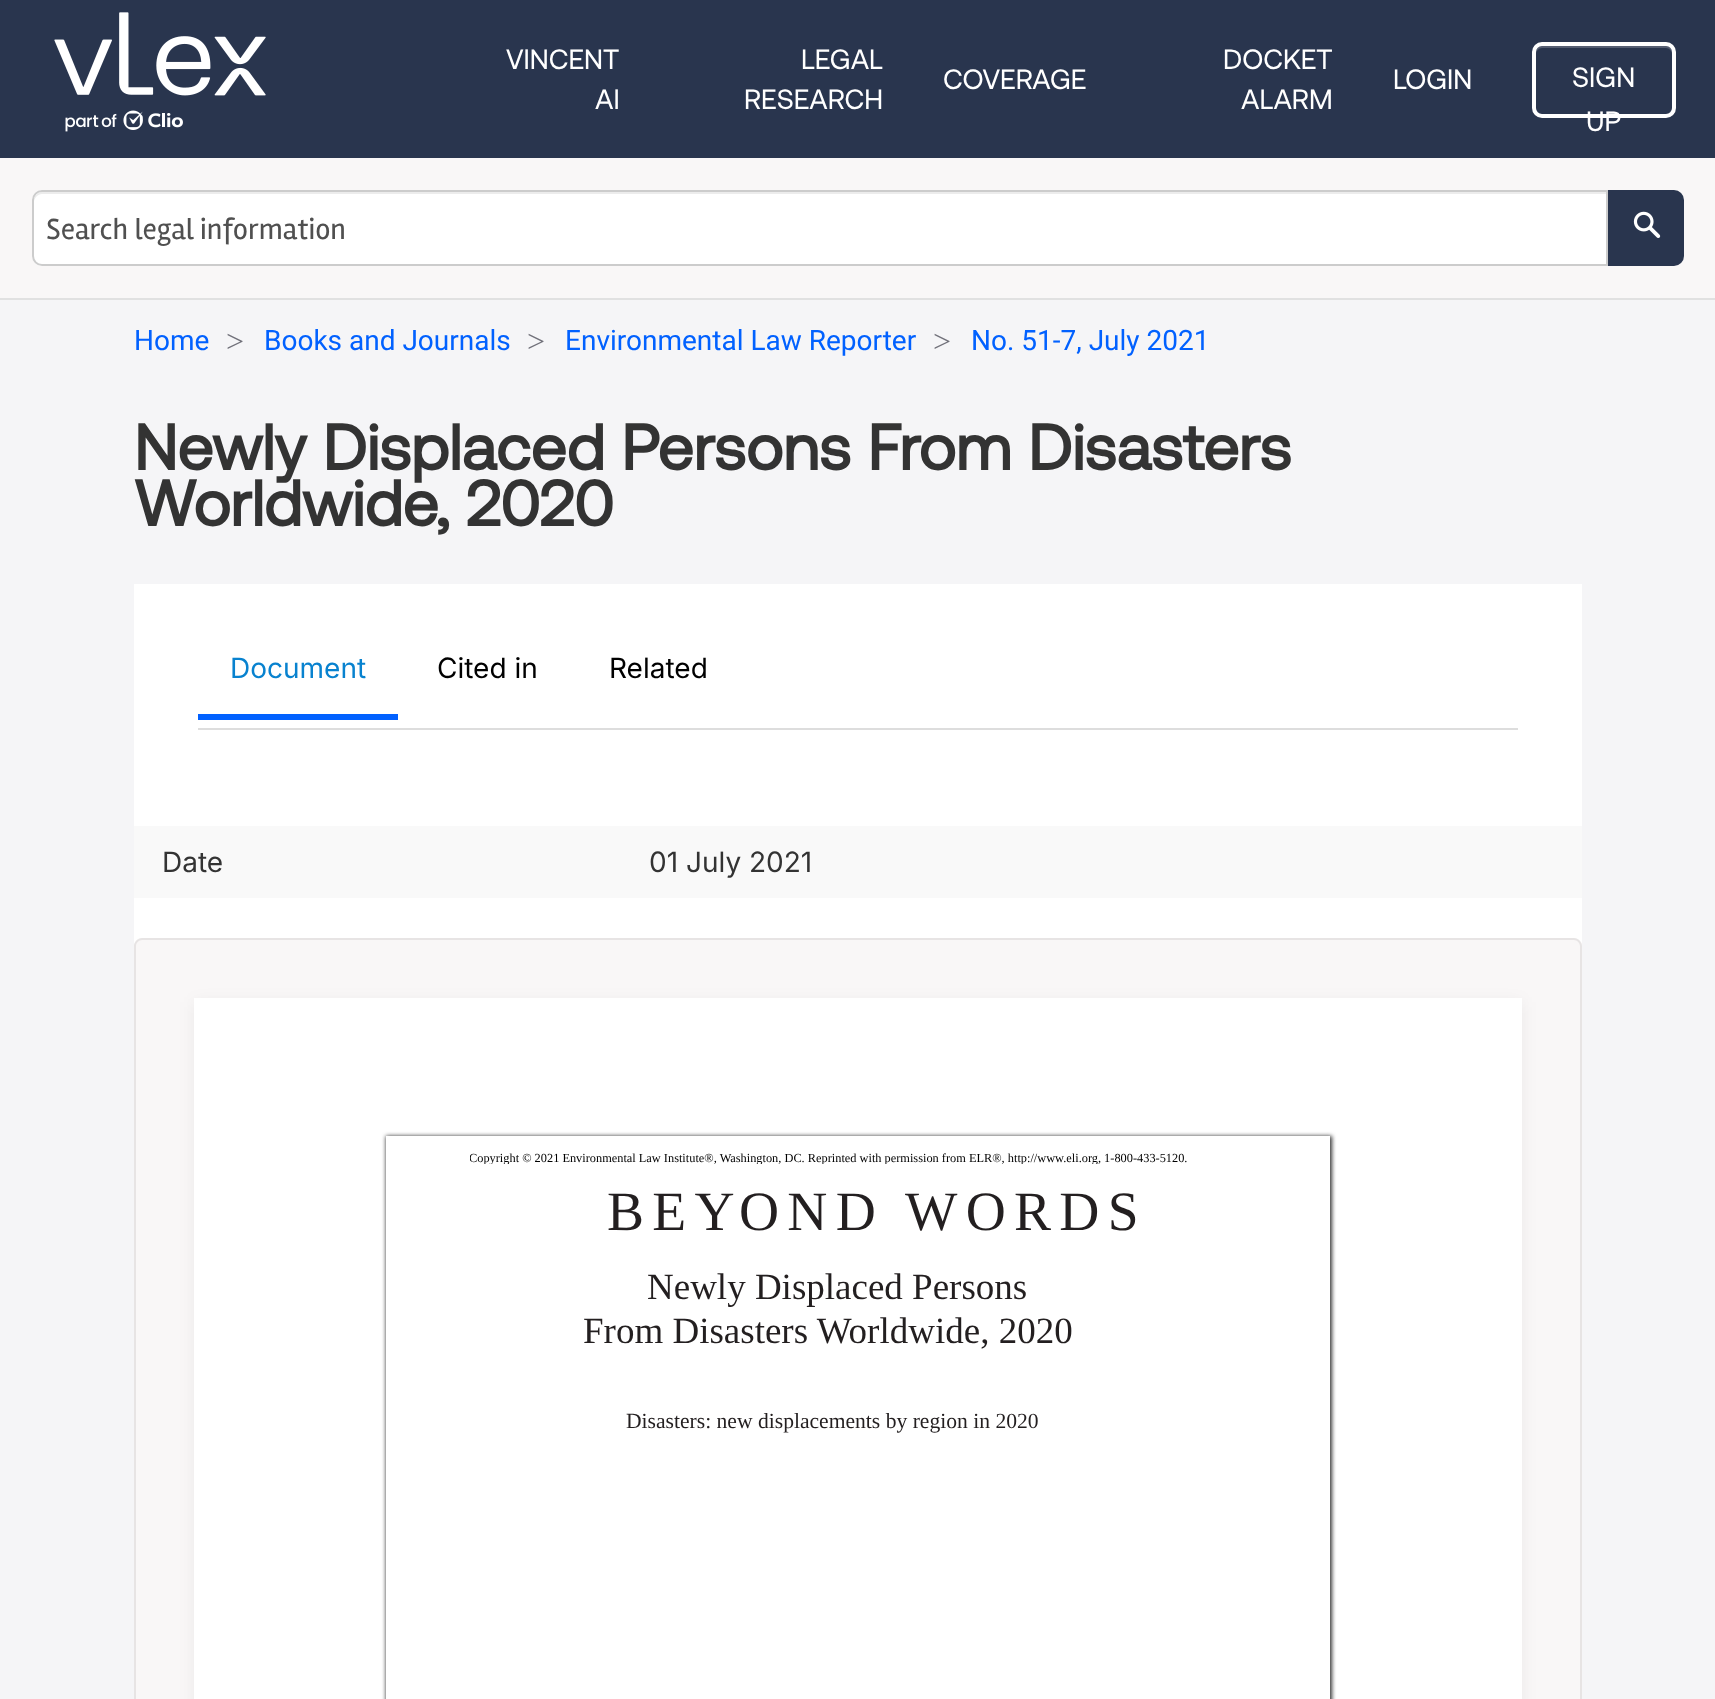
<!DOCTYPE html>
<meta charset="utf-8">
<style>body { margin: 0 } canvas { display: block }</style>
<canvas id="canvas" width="1715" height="1699"></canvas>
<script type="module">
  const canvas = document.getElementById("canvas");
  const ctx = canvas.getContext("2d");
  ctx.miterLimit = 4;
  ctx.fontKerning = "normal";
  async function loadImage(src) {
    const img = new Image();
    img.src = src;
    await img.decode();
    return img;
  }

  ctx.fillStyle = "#f5f5f7";
  ctx.fillRect(0, 0, 1715, 1699);
  ctx.fillStyle = "#29354e";
  ctx.fillRect(0, 0, 1715, 158);
  ctx.drawImage(await loadImage("img1.png"), 54, 12, 212, 120);
  ctx.font = "28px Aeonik";
  ctx.fillStyle = "#ffffff";
  ctx.fillText("VINCENT", 506, 69);
  ctx.fillText("AI", 595, 109);
  ctx.fillText("LEGAL", 801, 69);
  ctx.fillText("RESEARCH", 744, 109);
  ctx.fillText("COVERAGE", 943, 89);
  ctx.fillText("DOCKET", 1223, 69);
  ctx.fillText("ALARM", 1241, 109);
  ctx.fillText("LOGIN", 1393, 89);
  ctx.fillStyle = "#545d71";
  ctx.beginPath();
  ctx.moveTo(1542, 48);
  ctx.lineTo(1666, 48);
  ctx.bezierCurveTo(1669, 48, 1672, 51, 1672, 54);
  ctx.lineTo(1672, 52);
  ctx.bezierCurveTo(1672, 49, 1669, 46, 1666, 46);
  ctx.lineTo(1542, 46);
  ctx.bezierCurveTo(1539, 46, 1536, 49, 1536, 52);
  ctx.lineTo(1536, 54);
  ctx.bezierCurveTo(1536, 51, 1539, 48, 1542, 48);
  ctx.closePath();
  ctx.fill();
  ctx.beginPath();
  ctx.roundRect(1534, 44, 140, 72, 8);
  ctx.strokeStyle = "#ffffff";
  ctx.lineWidth = 4;
  ctx.stroke();
  ctx.fillStyle = "#ffffff";
  ctx.fillText("SIGN", 1572, 87);
  ctx.fillText("UP", 1586, 131);
  ctx.fillStyle = "#f9f7f7";
  ctx.fillRect(0, 158, 1715, 140);
  ctx.fillStyle = "#e1e1e1";
  ctx.fillRect(0, 298, 1715, 2);
  ctx.fillStyle = "#ffffff";
  ctx.beginPath();
  ctx.roundRect(32, 190, 1576, 76, [10, 0, 0, 10]);
  ctx.fill();
  ctx.fillStyle = "#ececec";
  ctx.beginPath();
  ctx.moveTo(42, 194);
  ctx.lineTo(1606, 194);
  ctx.lineTo(1606, 192);
  ctx.lineTo(42, 192);
  ctx.bezierCurveTo(38, 192, 34, 196, 34, 200);
  ctx.lineTo(34, 202);
  ctx.bezierCurveTo(34, 198, 38, 194, 42, 194);
  ctx.closePath();
  ctx.fill();
  ctx.beginPath();
  ctx.roundRect(33, 191, 1574, 74, [9, 0, 0, 9]);
  ctx.strokeStyle = "#cccccc";
  ctx.lineWidth = 2;
  ctx.stroke();
  ctx.font = "30px Rambla";
  ctx.fillStyle = "#505050";
  ctx.fillText("Search legal information", 46, 239);
  ctx.fillStyle = "#29354e";
  ctx.beginPath();
  ctx.roundRect(1608, 190, 76, 76, [0, 10, 10, 0]);
  ctx.fill();
  ctx.drawImage(await loadImage("img2.png"), 1633, 211, 28, 27);
  ctx.font = "28px Roboto";
  ctx.fillStyle = "#0161ff";
  ctx.fillText("Home", 134, 350);
  ctx.font = "32px Liberation Serif";
  ctx.fillStyle = "#71717a";
  ctx.fillText(">", 226, 352);
  ctx.font = "28px Roboto";
  ctx.fillStyle = "#0161ff";
  ctx.fillText("Books and Journals", 264, 350);
  ctx.font = "32px Liberation Serif";
  ctx.fillStyle = "#71717a";
  ctx.fillText(">", 527, 352);
  ctx.font = "28px Roboto";
  ctx.fillStyle = "#0161ff";
  ctx.fillText("Environmental Law Reporter", 565, 350);
  ctx.font = "32px Liberation Serif";
  ctx.fillStyle = "#71717a";
  ctx.fillText(">", 933, 352);
  ctx.font = "28px Roboto";
  ctx.fillStyle = "#0161ff";
  ctx.fillText("No. 51-7, July 2021", 971, 350);
  ctx.font = "bold 64px Aeonik";
  ctx.fillStyle = "#333333";
  ctx.fillText("Newly Displaced Persons From Disasters", 134, 470);
  ctx.fillText("Worldwide, 2020", 134, 526);
  ctx.fillStyle = "#ffffff";
  ctx.fillRect(134, 584, 1448, 362);
  ctx.fillStyle = "#dddddd";
  ctx.fillRect(198, 728, 1320, 2);
  ctx.font = "28px Inter";
  ctx.fillStyle = "#0882cf";
  ctx.fillText("Document", 230, 678);
  ctx.fillStyle = "#0161ff";
  ctx.fillRect(198, 714, 200, 6);
  ctx.fillStyle = "#000000";
  ctx.fillText("Cited in", 437, 678);
  ctx.fillText("Related", 609, 678);
  ctx.fillStyle = "#f9f9f9";
  ctx.fillRect(134, 826, 1448, 72);
  ctx.fillStyle = "#333333";
  ctx.fillText("Date", 162, 872);
  ctx.fillText("01 July 2021", 649, 872);
  ctx.fillStyle = "#f9f7f7";
  ctx.beginPath();
  ctx.moveTo(142, 938);
  ctx.lineTo(1574, 938);
  ctx.bezierCurveTo(1578.5, 938, 1582, 941.5, 1582, 946);
  ctx.lineTo(1582, 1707);
  ctx.lineTo(134, 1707);
  ctx.lineTo(134, 946);
  ctx.bezierCurveTo(134, 941.5, 137.5, 938, 142, 938);
  ctx.closePath();
  ctx.fill();
  ctx.fillStyle = "#e7e4e4";
  ctx.beginPath();
  ctx.moveTo(142, 938);
  ctx.lineTo(1574, 938);
  ctx.bezierCurveTo(1578, 938, 1582, 942, 1582, 946);
  ctx.lineTo(1582, 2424);
  ctx.lineTo(134, 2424);
  ctx.lineTo(134, 946);
  ctx.bezierCurveTo(134, 942, 138, 938, 142, 938);
  ctx.closePath();
  ctx.moveTo(142, 940);
  ctx.lineTo(1574, 940);
  ctx.bezierCurveTo(1577, 940, 1580, 943, 1580, 946);
  ctx.lineTo(1580, 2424);
  ctx.lineTo(136, 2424);
  ctx.lineTo(136, 946);
  ctx.bezierCurveTo(136, 943, 139, 940, 142, 940);
  ctx.closePath();
  ctx.fill("evenodd");
  ctx.fillStyle = "rgba(0, 0, 0, 0.06)";
  ctx.filter = "blur(8px)";
  ctx.beginPath();
  ctx.rect(194, 1002, 1328, 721);
  ctx.fill();
  ctx.filter = "none";
  ctx.fillStyle = "#ffffff";
  ctx.fillRect(194, 998, 1328, 701);
  ctx.save();
  ctx.beginPath();
  ctx.moveTo(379, 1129);
  ctx.lineTo(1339, 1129);
  ctx.lineTo(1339, 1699);
  ctx.lineTo(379, 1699);
  ctx.closePath();
  ctx.moveTo(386, 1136);
  ctx.lineTo(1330, 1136);
  ctx.lineTo(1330, 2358);
  ctx.lineTo(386, 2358);
  ctx.closePath();
  ctx.clip("evenodd");
  ctx.fillStyle = "#333333";
  ctx.filter = "blur(2px)";
  ctx.beginPath();
  ctx.rect(386, 1136, 946, 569);
  ctx.fill();
  ctx.filter = "none";
  ctx.restore();
  ctx.save();
  ctx.beginPath();
  ctx.rect(470, 1150, 770, 14);
  ctx.clip();
  ctx.font = "12.35px Liberation Serif";
  ctx.fillStyle = "#000000";
  ctx.fillText("Copyright © 2021 Environmental Law Institute®, Washington, DC. Reprinted with permission from ELR®, http://www.eli.org, 1-800-433-5120.", 469, 1162);
  ctx.restore();
  ctx.letterSpacing = "8.25px";
  ctx.font = "55.5px Liberation Serif";
  ctx.fillStyle = "#231f20";
  ctx.fillText("BEY", 607, 1230);
  ctx.fillText("OND WORDS", 739, 1230);
  ctx.letterSpacing = "0px";
  ctx.font = "37px Liberation Serif";
  ctx.fillText("Newly Displaced Persons", 647, 1299);
  ctx.fillText("From Disasters Worldwide, 2020", 583, 1343);
  ctx.font = "21.6px Liberation Serif";
  ctx.fillText("Disasters: new displacements by region in 2020", 626, 1428);
</script>
